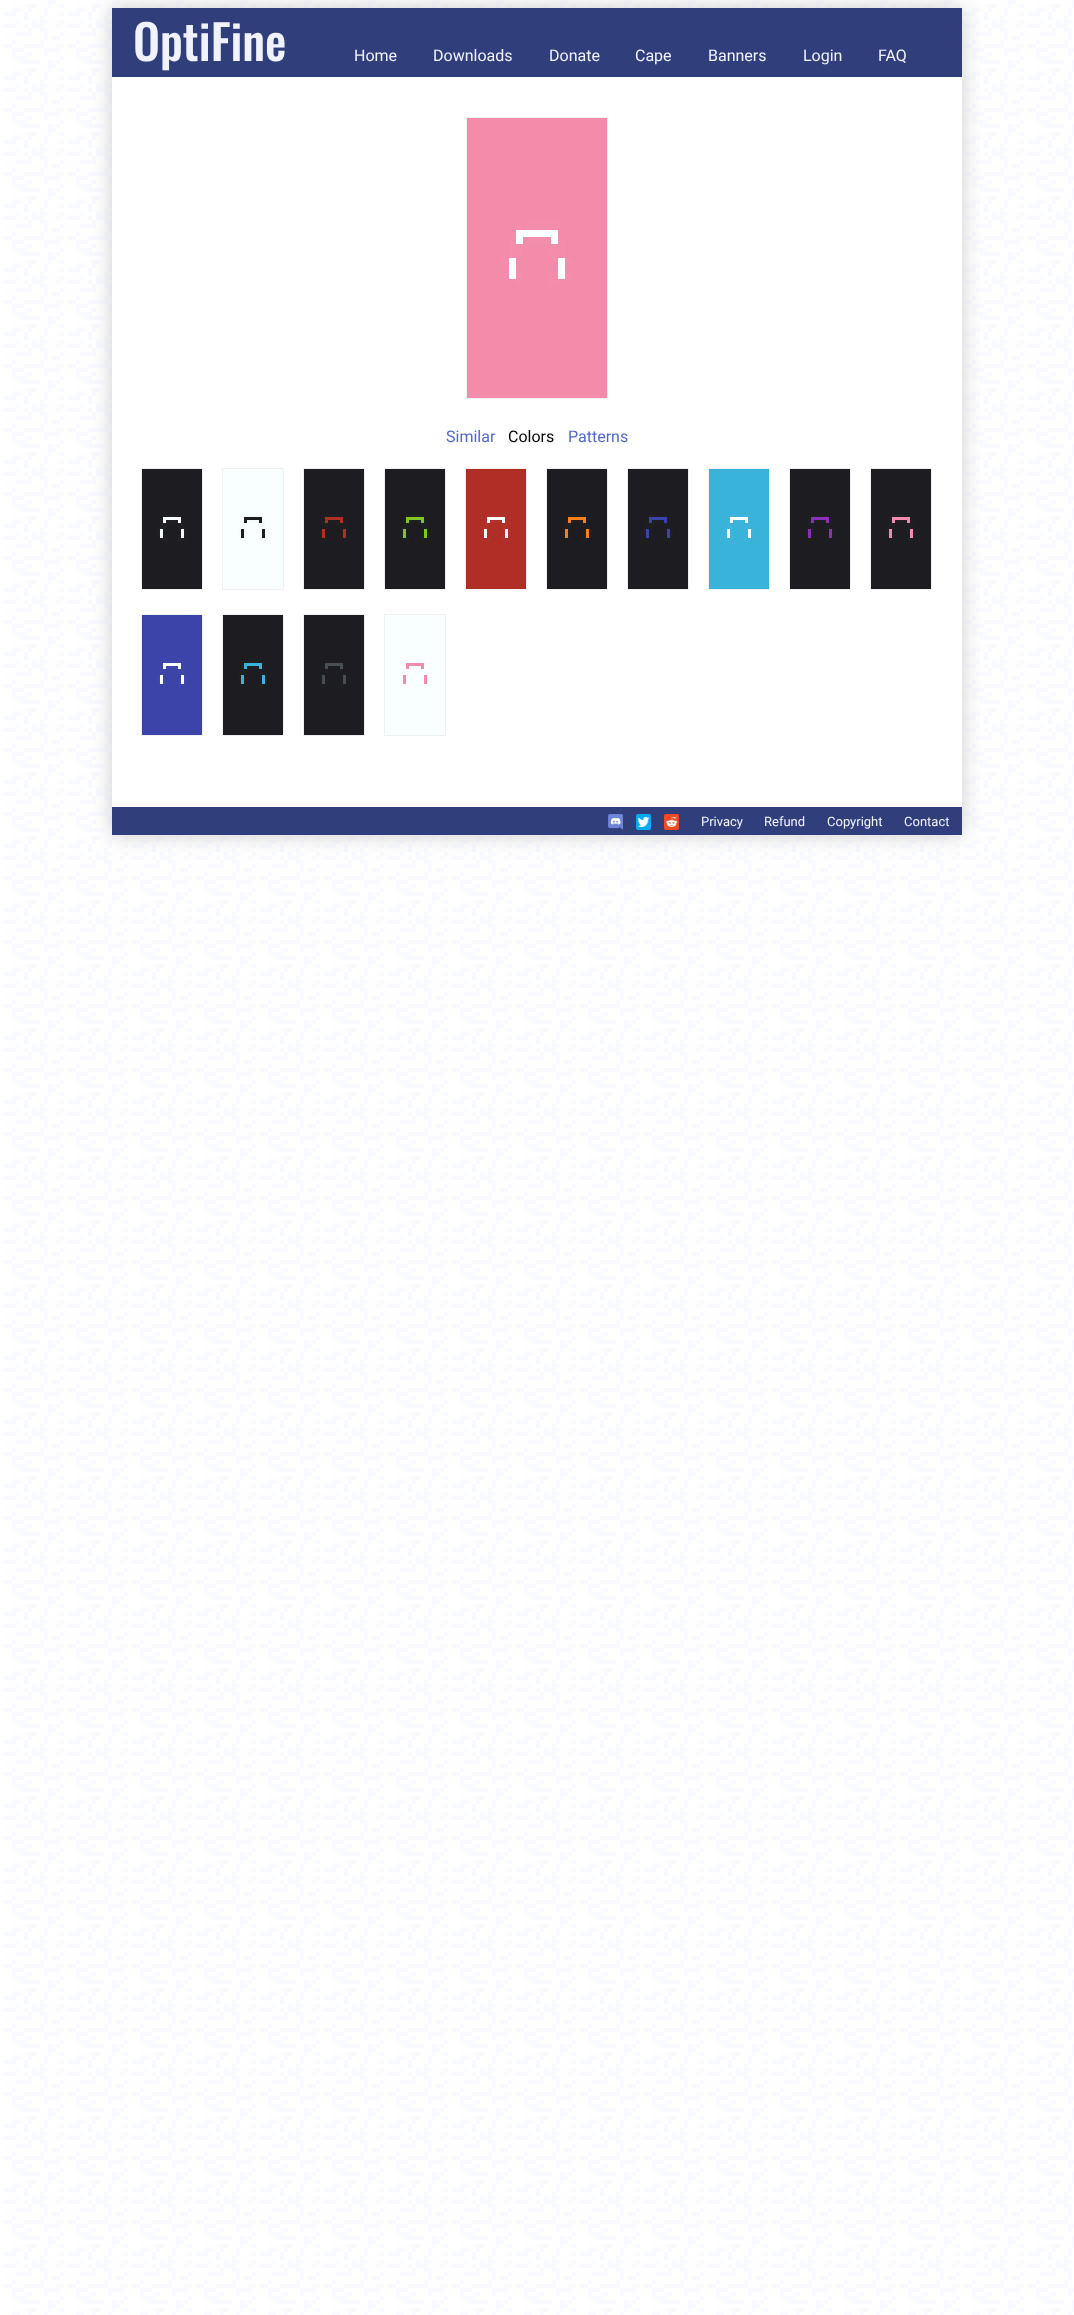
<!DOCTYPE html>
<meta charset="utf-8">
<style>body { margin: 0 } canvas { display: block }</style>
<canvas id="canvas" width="1074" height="2315"></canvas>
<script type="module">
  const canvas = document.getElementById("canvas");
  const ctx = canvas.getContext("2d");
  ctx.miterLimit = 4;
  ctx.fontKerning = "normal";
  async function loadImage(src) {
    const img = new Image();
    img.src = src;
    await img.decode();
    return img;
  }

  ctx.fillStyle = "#ffffff";
  ctx.fillRect(0, 0, 1074, 2315);
  ctx.drawImage(await loadImage("img1.png"), 4, 0, 1070, 2315);
  ctx.fillStyle = "#cccccc";
  ctx.filter = "blur(10px)";
  ctx.beginPath();
  ctx.rect(112, 8, 850, 827);
  ctx.fill();
  ctx.filter = "none";
  ctx.fillStyle = "#ffffff";
  ctx.fillRect(112, 77, 850, 730);
  ctx.fillStyle = "#313e7c";
  ctx.fillRect(112, 8, 850, 69);
  ctx.font = "500 48px Oswald";
  ctx.fillStyle = "#f0f3ff";
  ctx.fillText("OptiFine", 133, 61);
  ctx.font = "16px Roboto";
  ctx.fillText("Home", 354, 61);
  ctx.fillText("Downloads", 433, 61);
  ctx.fillText("Donate", 549, 61);
  ctx.fillText("Cape", 635, 61);
  ctx.fillText("Banners", 708, 61);
  ctx.fillText("Login", 803, 61);
  ctx.fillText("FAQ", 878, 61);
  ctx.strokeStyle = "#f0f0f0";
  ctx.strokeRect(466.5, 117.5, 141, 281);
  ctx.drawImage(await loadImage("img2.png"), 467, 118, 140, 280);
  ctx.fillStyle = "#5168cf";
  ctx.fillText("Similar", 446, 442);
  ctx.fillStyle = "#000000";
  ctx.fillText("Colors", 508, 442);
  ctx.fillStyle = "#5168cf";
  ctx.fillText("Patterns", 568, 442);
  ctx.strokeRect(141.5, 468.5, 61, 121);
  ctx.drawImage(await loadImage("img3.png"), 142, 469, 60, 120);
  ctx.strokeRect(222.5, 468.5, 61, 121);
  ctx.drawImage(await loadImage("img4.png"), 223, 469, 60, 120);
  ctx.strokeRect(303.5, 468.5, 61, 121);
  ctx.drawImage(await loadImage("img5.png"), 304, 469, 60, 120);
  ctx.strokeRect(384.5, 468.5, 61, 121);
  ctx.drawImage(await loadImage("img6.png"), 385, 469, 60, 120);
  ctx.strokeRect(465.5, 468.5, 61, 121);
  ctx.drawImage(await loadImage("img7.png"), 466, 469, 60, 120);
  ctx.strokeRect(546.5, 468.5, 61, 121);
  ctx.drawImage(await loadImage("img8.png"), 547, 469, 60, 120);
  ctx.strokeRect(627.5, 468.5, 61, 121);
  ctx.drawImage(await loadImage("img9.png"), 628, 469, 60, 120);
  ctx.strokeRect(708.5, 468.5, 61, 121);
  ctx.drawImage(await loadImage("img10.png"), 709, 469, 60, 120);
  ctx.strokeRect(789.5, 468.5, 61, 121);
  ctx.drawImage(await loadImage("img11.png"), 790, 469, 60, 120);
  ctx.strokeRect(870.5, 468.5, 61, 121);
  ctx.drawImage(await loadImage("img12.png"), 871, 469, 60, 120);
  ctx.strokeRect(141.5, 614.5, 61, 121);
  ctx.drawImage(await loadImage("img13.png"), 142, 615, 60, 120);
  ctx.strokeRect(222.5, 614.5, 61, 121);
  ctx.drawImage(await loadImage("img14.png"), 223, 615, 60, 120);
  ctx.strokeRect(303.5, 614.5, 61, 121);
  ctx.drawImage(await loadImage("img15.png"), 304, 615, 60, 120);
  ctx.strokeRect(384.5, 614.5, 61, 121);
  ctx.drawImage(await loadImage("img16.png"), 385, 615, 60, 120);
  ctx.fillStyle = "#313e7c";
  ctx.fillRect(112, 807, 850, 28);
  ctx.drawImage(await loadImage("img17.png"), 608, 814, 15, 16);
  ctx.drawImage(await loadImage("img18.png"), 636, 814, 15, 16);
  ctx.drawImage(await loadImage("img19.png"), 664, 814, 15, 16);
  ctx.font = "13px Roboto";
  ctx.fillStyle = "#f0f3ff";
  ctx.fillText("Privacy", 701, 826);
  ctx.fillText("Refund", 764, 826);
  ctx.fillText("Copyright", 827, 826);
  ctx.fillText("Contact", 904, 826);
</script>
